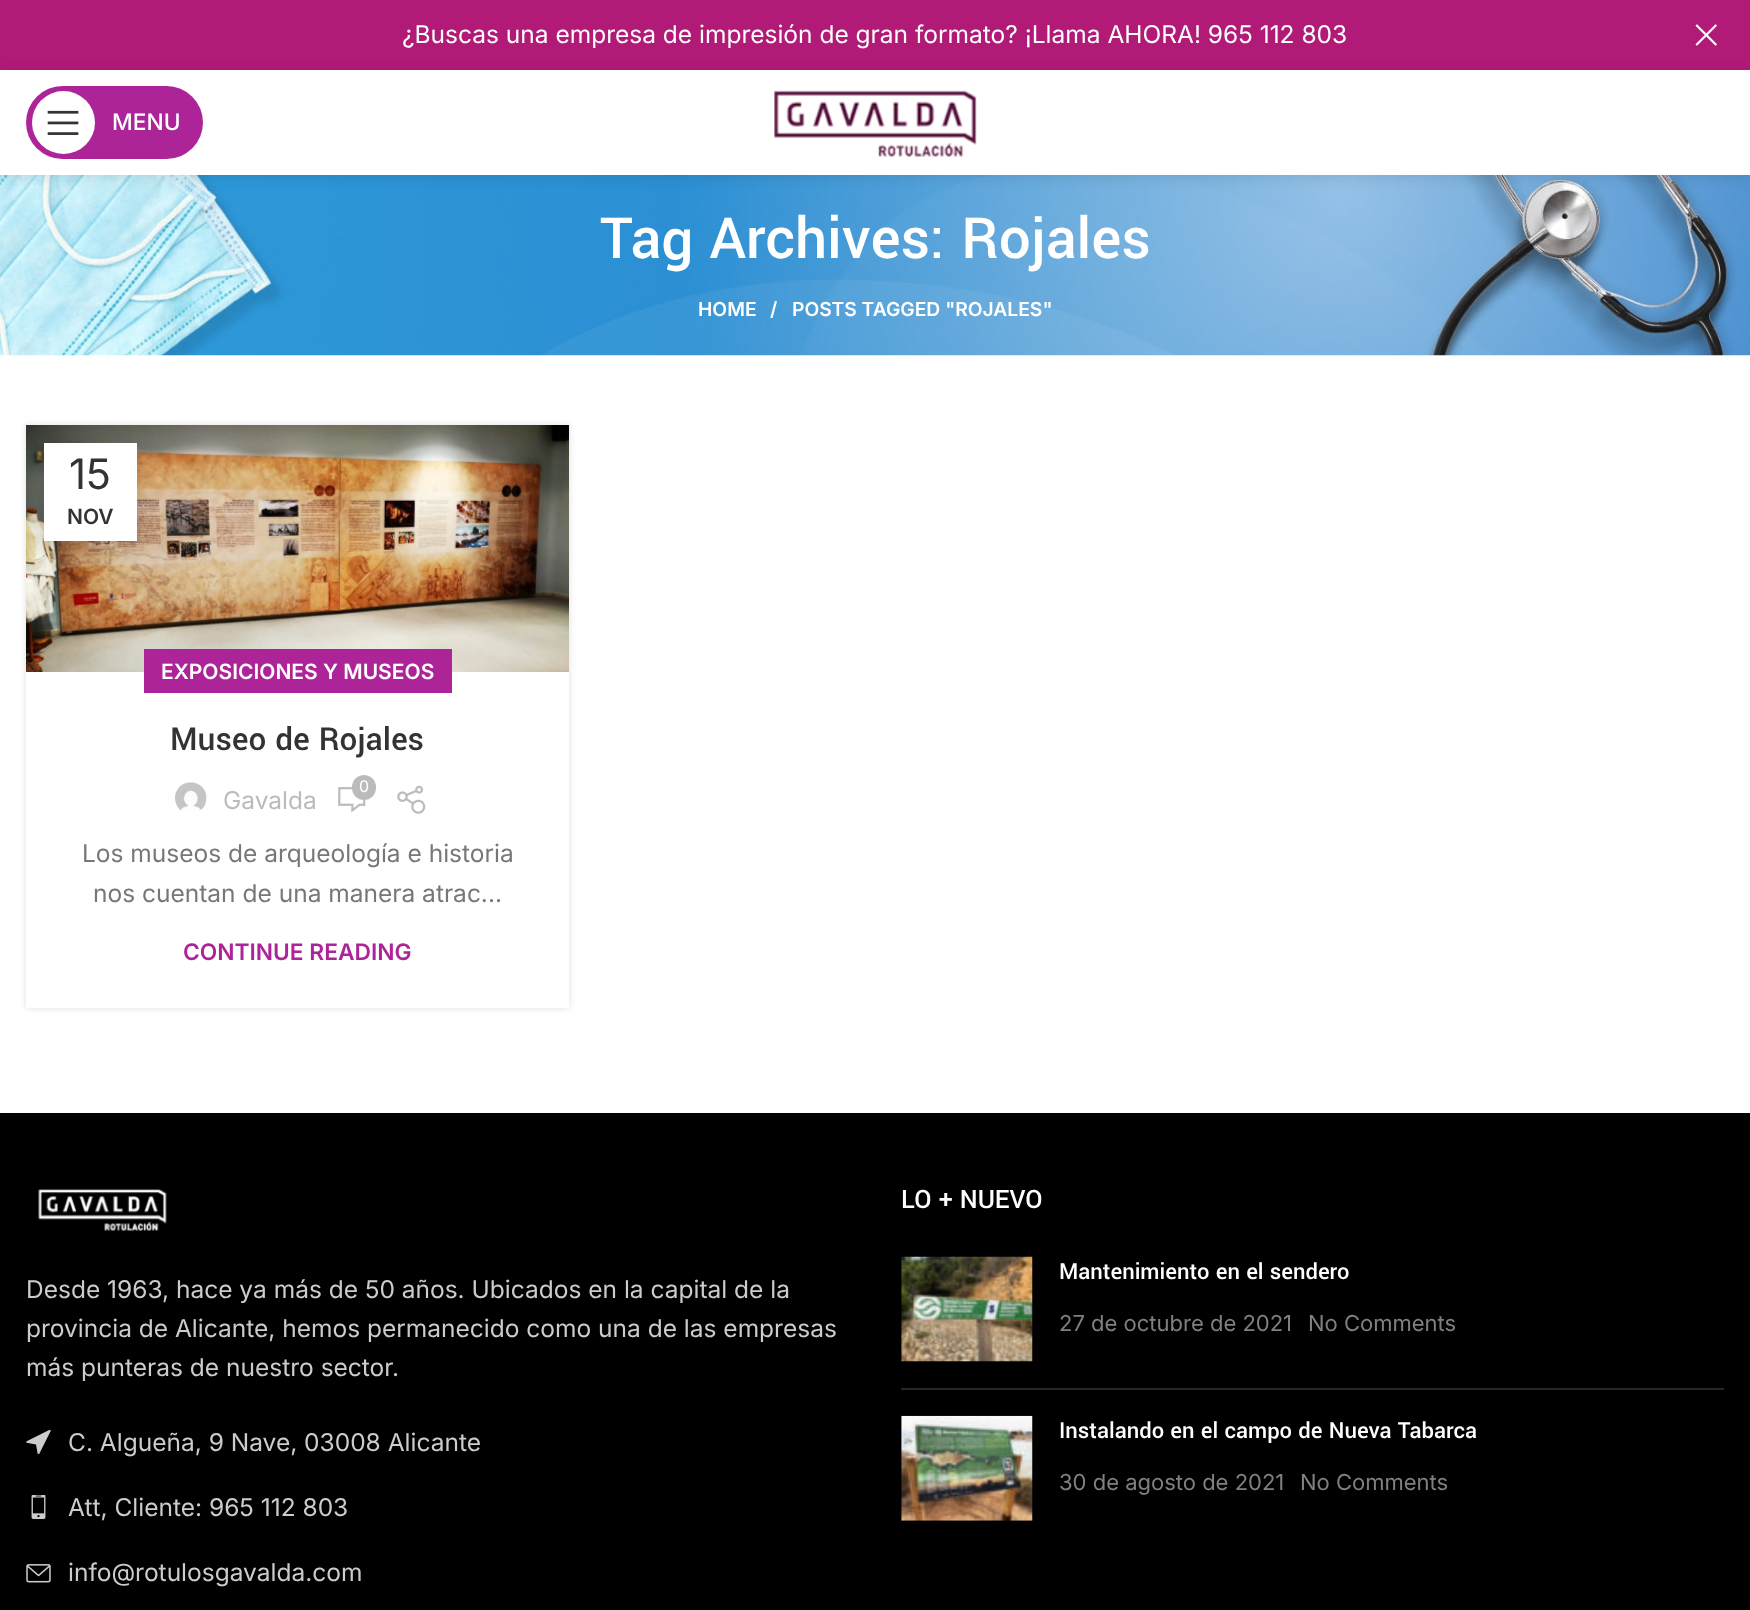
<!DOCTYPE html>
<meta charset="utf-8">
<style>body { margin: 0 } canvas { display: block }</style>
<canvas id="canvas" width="1750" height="1610"></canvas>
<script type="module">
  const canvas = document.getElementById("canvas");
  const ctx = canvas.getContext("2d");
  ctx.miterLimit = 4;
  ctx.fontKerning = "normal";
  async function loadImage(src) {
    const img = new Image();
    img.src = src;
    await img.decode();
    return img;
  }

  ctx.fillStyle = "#ffffff";
  ctx.fillRect(0, 0, 1750, 1610);
  ctx.fillStyle = "#b21a78";
  ctx.fillRect(0, 0, 1750, 70);
  ctx.font = "24.5px Inter";
  ctx.fillStyle = "#ffffff";
  ctx.fillText("¿Buscas una empresa de impresión de gran formato? ¡Llama AHORA! 965 112 803", 402, 43);
  ctx.drawImage(await loadImage("img1.png"), 1695, 24, 22, 22);
  ctx.drawImage(await loadImage("img4.png"), 0, 175, 1750, 181);
  ctx.fillStyle = "rgba(0, 0, 0, 0.1)";
  ctx.filter = "blur(7px)";
  ctx.beginPath();
  ctx.rect(0, 72, 1750, 105);
  ctx.fill();
  ctx.filter = "none";
  ctx.fillStyle = "#ffffff";
  ctx.fillRect(0, 70, 1750, 105);
  ctx.fillStyle = "#ad2498";
  ctx.beginPath();
  ctx.roundRect(26, 86, 177, 73, 36.5);
  ctx.fill();
  ctx.fillStyle = "#ffffff";
  ctx.beginPath();
  ctx.arc(63.5, 122.5, 31.5, 0, Math.PI * 2);
  ctx.fill();
  ctx.drawImage(await loadImage("img2.png"), 47, 110, 32, 25);
  ctx.font = "500 22.75px Inter";
  ctx.fillText("MENU", 112, 130);
  ctx.drawImage(await loadImage("img3.png"), 774, 90, 203, 67);
  ctx.font = "500 63px Yantramanav";
  ctx.fillText("Tag Archives: Rojales", 600, 258);
  ctx.font = "600 19.25px Inter";
  ctx.fillText("HOME", 698, 316);
  ctx.fillText("/", 770, 316);
  ctx.fillText("POSTS TAGGED \"ROJALES\"", 792, 316);
  ctx.fillStyle = "rgba(0, 0, 0, 0.12)";
  ctx.filter = "blur(3.5px)";
  ctx.beginPath();
  ctx.rect(26, 425, 543, 583);
  ctx.fill();
  ctx.filter = "none";
  ctx.drawImage(await loadImage("img5.png"), 26, 425, 543, 247);
  ctx.fillStyle = "rgba(0, 0, 0, 0.1)";
  ctx.filter = "blur(8px)";
  ctx.beginPath();
  ctx.rect(44, 443, 93, 98);
  ctx.fill();
  ctx.filter = "none";
  ctx.fillStyle = "#ffffff";
  ctx.fillRect(44, 443, 93, 98);
  ctx.font = "42px Inter";
  ctx.fillStyle = "#333333";
  ctx.fillText("15", 69, 489);
  ctx.font = "600 21px Inter";
  ctx.fillText("NOV", 67, 524);
  ctx.fillStyle = "#ffffff";
  ctx.fillRect(26, 672, 543, 336);
  ctx.fillStyle = "#ad2498";
  ctx.fillRect(144, 649, 308, 44);
  ctx.fillStyle = "#ffffff";
  ctx.fillText("EXPOSICIONES Y MUSEOS", 161, 679);
  ctx.font = "500 35px Yantramanav";
  ctx.fillStyle = "#333333";
  ctx.fillText("Museo de Rojales", 170, 750);
  ctx.drawImage(await loadImage("img6.png"), 338, 787, 28, 26);
  ctx.fillStyle = "#bbbbbb";
  ctx.beginPath();
  ctx.roundRect(352, 775, 24, 25, 12);
  ctx.fill();
  ctx.font = "16px Inter";
  ctx.fillStyle = "#ffffff";
  ctx.fillText("0", 359, 792);
  ctx.drawImage(await loadImage("img7.png"), 175, 782, 32, 29);
  ctx.font = "24.5px Inter";
  ctx.fillStyle = "#bbbbbb";
  ctx.fillText("Gavalda", 223, 809);
  ctx.drawImage(await loadImage("img8.png"), 397, 785, 29, 29);
  ctx.fillStyle = "#777777";
  ctx.fillText("Los museos de arqueología e historia", 82, 862);
  ctx.fillText("nos cuentan de una manera atrac...", 93, 902);
  ctx.font = "600 22.75px Inter";
  ctx.fillStyle = "#ad2498";
  ctx.fillText("CONTINUE READING", 183, 960);
  ctx.fillStyle = "#000000";
  ctx.fillRect(0, 1113, 1750, 497);
  ctx.drawImage(await loadImage("img9.png"), 38, 1189, 129, 42);
  ctx.font = "24.5px Inter";
  ctx.fillStyle = "#cccccc";
  ctx.fillText("Desde 1963, hace ya más de 50 años. Ubicados en la capital de la", 26, 1298);
  ctx.fillText("provincia de Alicante, hemos permanecido como una de las empresas", 26, 1337);
  ctx.fillText("más punteras de nuestro sector.", 26, 1376);
  ctx.drawImage(await loadImage("img10.png"), 26, 1430, 25, 24);
  ctx.fillText("C. Algueña, 9 Nave, 03008 Alicante", 68, 1451);
  ctx.drawImage(await loadImage("img11.png"), 31, 1495, 15, 24);
  ctx.fillText("Att, Cliente: 965 112 803", 68, 1516);
  ctx.drawImage(await loadImage("img12.png"), 26, 1564, 25, 19);
  ctx.fillText("info@rotulosgavalda.com", 68, 1581);
  ctx.font = "500 28px Yantramanav";
  ctx.fillStyle = "#ffffff";
  ctx.fillText("LO + NUEVO", 901, 1208);
  ctx.fillStyle = "#262626";
  ctx.fillRect(901, 1388, 823, 2);
  ctx.drawImage(await loadImage("img13.png"), 901, 1256, 132, 106);
  ctx.font = "500 24.5px Yantramanav";
  ctx.fillStyle = "#ffffff";
  ctx.fillText("Mantenimiento en el sendero", 1059, 1279);
  ctx.font = "22px Inter";
  ctx.fillStyle = "#808080";
  ctx.fillText("27 de octubre de 2021", 1059, 1331);
  ctx.fillText("No Comments", 1308, 1331);
  ctx.drawImage(await loadImage("img14.png"), 901, 1415, 132, 106);
  ctx.font = "500 24.5px Yantramanav";
  ctx.fillStyle = "#ffffff";
  ctx.fillText("Instalando en el campo de Nueva Tabarca", 1059, 1438);
  ctx.font = "22px Inter";
  ctx.fillStyle = "#808080";
  ctx.fillText("30 de agosto de 2021", 1059, 1490);
  ctx.fillText("No Comments", 1300, 1490);
</script>
